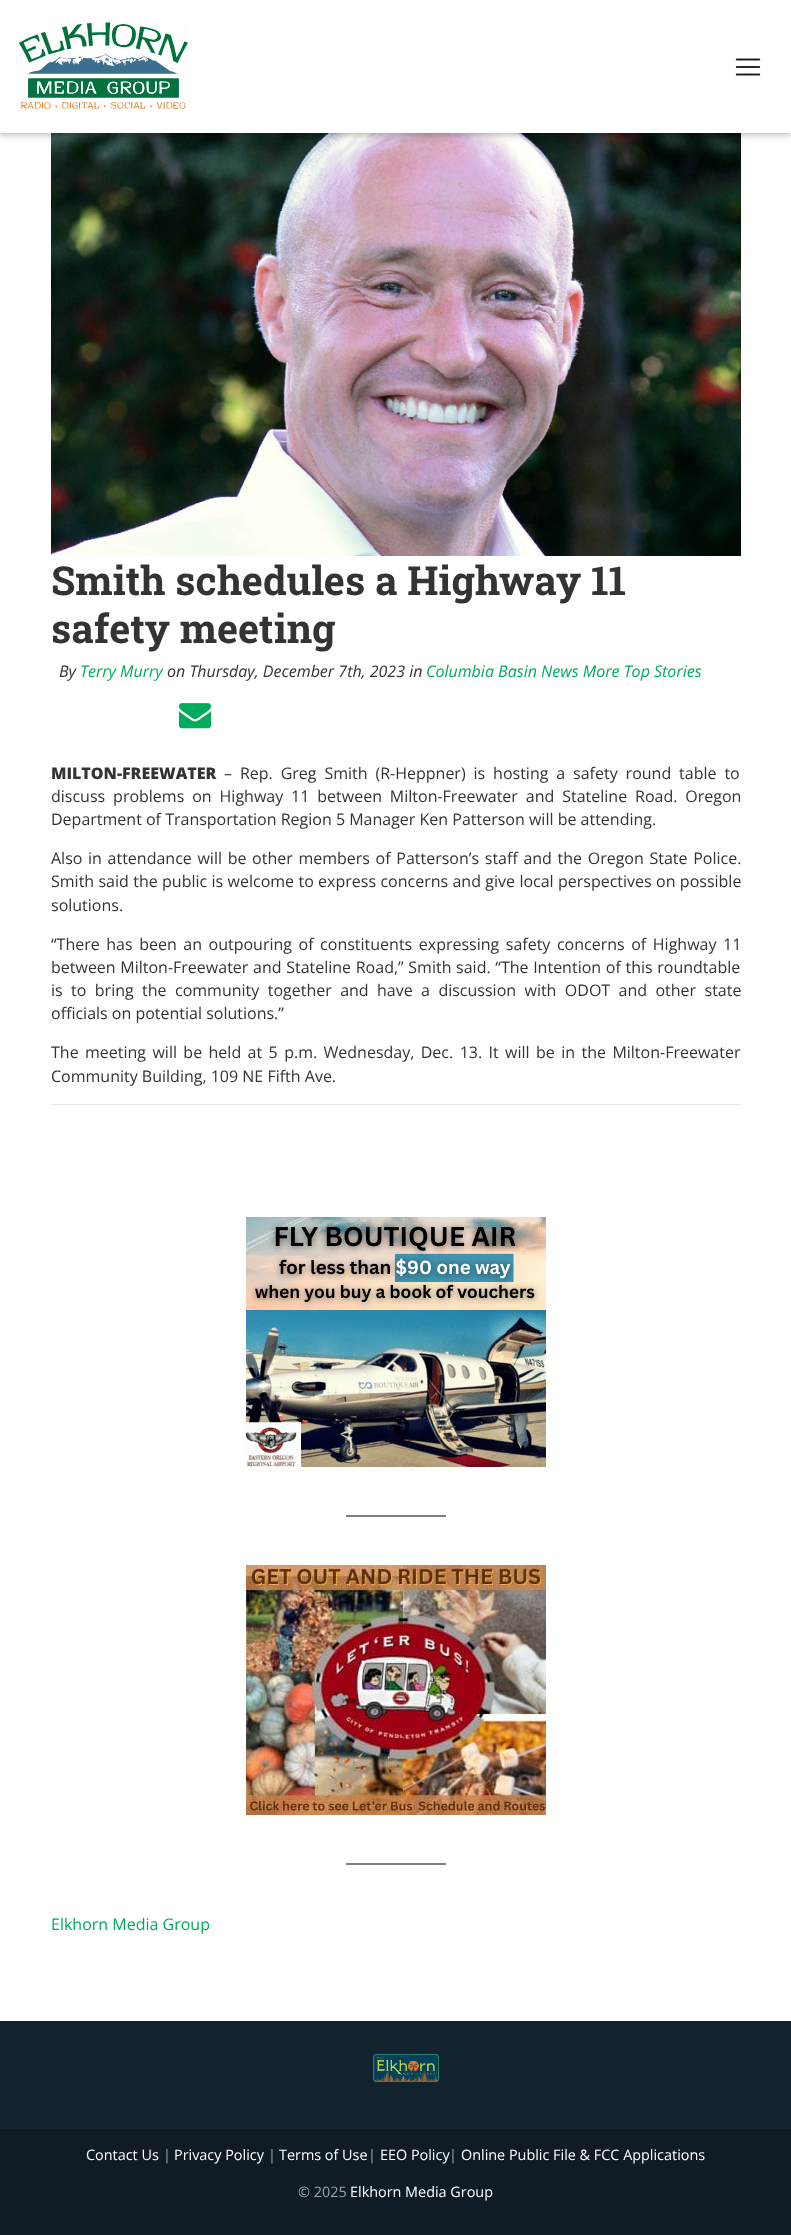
<!DOCTYPE html>
<meta charset="utf-8">
<style>body { margin: 0 } canvas { display: block }</style>
<canvas id="canvas" width="791" height="2235"></canvas>
<script type="module">
  const canvas = document.getElementById("canvas");
  const ctx = canvas.getContext("2d");
  ctx.miterLimit = 4;
  ctx.fontKerning = "normal";
  async function loadImage(src) {
    const img = new Image();
    img.src = src;
    await img.decode();
    return img;
  }

  ctx.fillStyle = "#ffffff";
  ctx.fillRect(0, 0, 791, 2235);
  ctx.drawImage(await loadImage("img3.png"), 51, 133, 690, 423);
  ctx.fillStyle = "rgba(0, 0, 0, 0.12)";
  ctx.filter = "blur(5px)";
  ctx.beginPath();
  ctx.rect(0, 2, 791, 133);
  ctx.fill();
  ctx.filter = "none";
  ctx.fillStyle = "rgba(0, 0, 0, 0.16)";
  ctx.filter = "blur(2.5px)";
  ctx.beginPath();
  ctx.rect(0, 2, 791, 133);
  ctx.fill();
  ctx.filter = "none";
  ctx.fillStyle = "#ffffff";
  ctx.fillRect(0, 0, 791, 133);
  ctx.drawImage(await loadImage("img1.png"), 19, 22, 169, 87);
  ctx.drawImage(await loadImage("img2.png"), 735, 58, 26, 18);
  ctx.font = "bold 40px Roboto Slab";
  ctx.fillStyle = "#333333";
  ctx.fillText("Smith schedules a Highway 11", 51, 595);
  ctx.fillText("safety meeting", 51, 643);
  ctx.font = "italic 16px Open Sans";
  ctx.fillText("By", 59, 677);
  ctx.fillStyle = "#00ab5c";
  ctx.fillText("Terry Murry", 80, 677);
  ctx.fillStyle = "#333333";
  ctx.fillText("on Thursday, December 7th, 2023 in", 167, 677);
  ctx.fillStyle = "#00ab5c";
  ctx.fillText("Columbia Basin News More Top Stories", 426, 677);
  ctx.drawImage(await loadImage("img4.png"), 179, 703, 32, 26);
  ctx.font = "800 16px Open Sans";
  ctx.fillStyle = "#333333";
  ctx.fillText("MILTON-FREEWATER", 51, 779);
  ctx.wordSpacing = "3.75px";
  ctx.font = "16px Open Sans";
  ctx.fillText("– Rep. Greg Smith (R-Heppner) is hosting a safety round table to", 224, 779);
  ctx.fillText("discuss problems on Highway 11 between Milton-Freewater and Stateline Road. Oregon", 51, 802);
  ctx.wordSpacing = "0px";
  ctx.fillText("Department of Transportation Region 5 Manager Ken Patterson will be attending.", 51, 825);
  ctx.wordSpacing = "1.5px";
  ctx.fillText("Also in attendance will be other members of Patterson’s staff and the Oregon State Police.", 51, 864);
  ctx.wordSpacing = "0.2px";
  ctx.fillText("Smith said the public is welcome to express concerns and give local perspectives on possible", 51, 887);
  ctx.wordSpacing = "0px";
  ctx.fillText("solutions.", 51, 911);
  ctx.wordSpacing = "2.4px";
  ctx.fillText("“There has been an outpouring of constituents expressing safety concerns of Highway 11", 51, 950);
  ctx.wordSpacing = "0.5px";
  ctx.fillText("between Milton-Freewater and Stateline Road,” Smith said. “The Intention of this roundtable", 51, 973);
  ctx.wordSpacing = "4.25px";
  ctx.fillText("is to bring the community together and have a discussion with ODOT and other state", 51, 996);
  ctx.wordSpacing = "0px";
  ctx.fillText("officials on potential solutions.”", 51, 1019);
  ctx.wordSpacing = "2.25px";
  ctx.fillText("The meeting will be held at 5 p.m. Wednesday, Dec. 13. It will be in the Milton-Freewater", 51, 1058);
  ctx.wordSpacing = "0px";
  ctx.fillText("Community Building, 109 NE Fifth Ave.", 51, 1082);
  ctx.fillStyle = "#e6e6e6";
  ctx.fillRect(51, 1104, 690, 1);
  ctx.drawImage(await loadImage("img5.png"), 246, 1217, 300, 250);
  ctx.fillStyle = "#808080";
  ctx.fillRect(346, 1515, 100, 2);
  ctx.drawImage(await loadImage("img6.png"), 246, 1565, 300, 250);
  ctx.fillRect(346, 1863, 100, 2);
  ctx.fillStyle = "#00ab5c";
  ctx.fillText("Elkhorn Media Group", 51, 1930);
  ctx.fillStyle = "#13232e";
  ctx.fillRect(0, 2021, 791, 108);
  ctx.drawImage(await loadImage("img7.png"), 373, 2054, 66, 29);
  ctx.fillStyle = "#0f1c25";
  ctx.fillRect(0, 2129, 791, 106);
  ctx.font = "14.4px Open Sans";
  ctx.fillStyle = "#ffffff";
  ctx.fillText("Contact Us", 86, 2160);
  ctx.fillStyle = "#9fa4a8";
  ctx.fillText("|", 163, 2160);
  ctx.fillStyle = "#ffffff";
  ctx.fillText("Privacy Policy", 174, 2160);
  ctx.fillStyle = "#9fa4a8";
  ctx.fillText("|", 268, 2160);
  ctx.fillStyle = "#ffffff";
  ctx.fillText("Terms of Use", 279, 2160);
  ctx.fillStyle = "#9fa4a8";
  ctx.fillText("|", 368, 2160);
  ctx.fillStyle = "#ffffff";
  ctx.fillText("EEO Policy", 380, 2160);
  ctx.fillStyle = "#9fa4a8";
  ctx.fillText("|", 449, 2160);
  ctx.fillStyle = "#ffffff";
  ctx.fillText("Online Public File & FCC Applications", 461, 2160);
  ctx.fillStyle = "#9fa4a8";
  ctx.fillText("© 2025", 298, 2197);
  ctx.fillStyle = "#ffffff";
  ctx.fillText("Elkhorn Media Group", 350, 2197);
</script>
